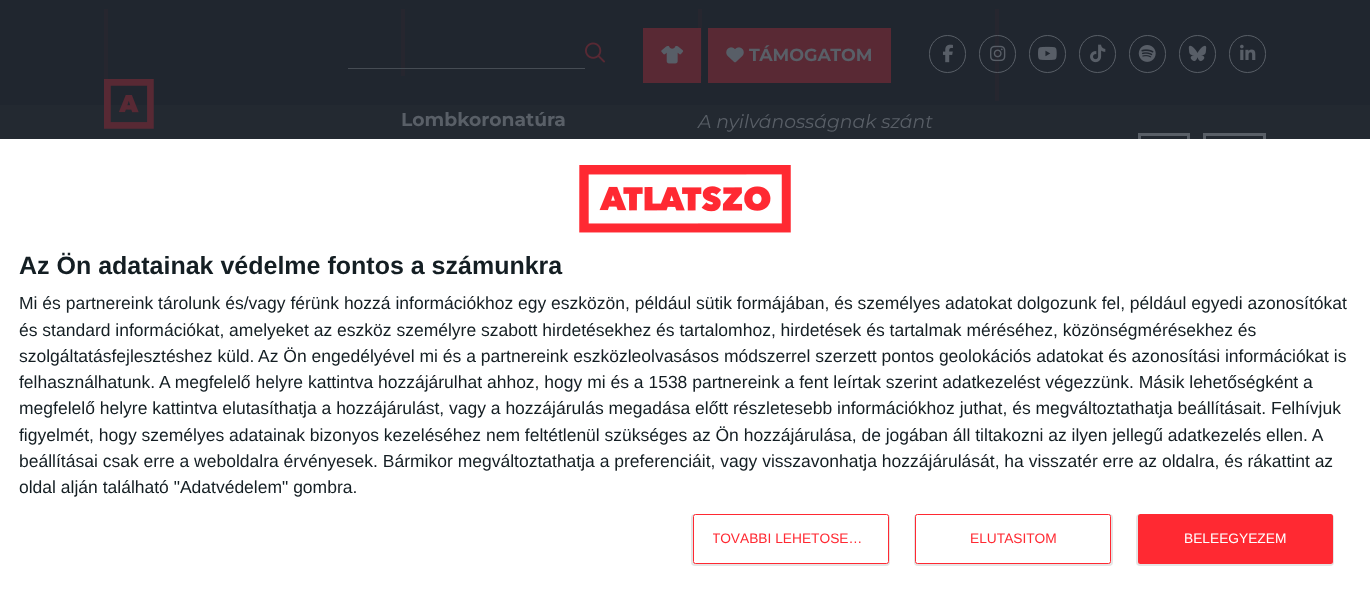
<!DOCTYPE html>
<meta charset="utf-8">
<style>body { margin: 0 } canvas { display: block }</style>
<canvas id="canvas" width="1370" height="594"></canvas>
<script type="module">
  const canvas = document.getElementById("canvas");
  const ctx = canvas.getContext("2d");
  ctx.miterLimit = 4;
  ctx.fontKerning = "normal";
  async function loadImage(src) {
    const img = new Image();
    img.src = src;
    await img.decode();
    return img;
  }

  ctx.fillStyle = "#232931";
  ctx.fillRect(0, 0, 1370, 594);
  ctx.fillStyle = "#20262f";
  ctx.fillRect(0, 0, 1370, 105);
  ctx.drawImage(await loadImage("img1.png"), 585, 42, 20, 21);
  ctx.fillStyle = "#26262f";
  ctx.fillRect(401, 9, 4, 67);
  ctx.fillStyle = "#464c54";
  ctx.fillRect(348, 68, 237, 1);
  ctx.fillStyle = "#26262f";
  ctx.fillRect(698, 9, 4, 67);
  ctx.fillStyle = "#592934";
  ctx.fillRect(643, 28, 58, 55);
  ctx.drawImage(await loadImage("img2.png"), 661, 45, 23, 19);
  ctx.fillRect(708, 28, 183, 55);
  ctx.drawImage(await loadImage("img3.png"), 726, 47, 18, 16);
  ctx.font = "bold 17.5px Montserrat";
  ctx.fillStyle = "#595f67";
  ctx.fillText("TÁMOGATOM", 749, 61);
  ctx.beginPath();
  ctx.roundRect(929.5, 35.5, 36, 37, 18);
  ctx.strokeStyle = "#595f67";
  ctx.stroke();
  ctx.drawImage(await loadImage("img4.png"), 942, 44, 11, 19);
  ctx.fillStyle = "#26262f";
  ctx.fillRect(995, 9, 4, 92);
  ctx.beginPath();
  ctx.roundRect(979.5, 35.5, 36, 37, 18);
  ctx.stroke();
  ctx.drawImage(await loadImage("img5.png"), 990, 45, 16, 17);
  ctx.beginPath();
  ctx.roundRect(1029.5, 35.5, 36, 37, 18);
  ctx.stroke();
  ctx.drawImage(await loadImage("img6.png"), 1038, 46, 19, 14);
  ctx.beginPath();
  ctx.roundRect(1079.5, 35.5, 36, 37, 18);
  ctx.stroke();
  ctx.drawImage(await loadImage("img7.png"), 1090, 44, 16, 19);
  ctx.beginPath();
  ctx.roundRect(1129.5, 35.5, 36, 37, 18);
  ctx.stroke();
  ctx.drawImage(await loadImage("img8.png"), 1138, 45, 18, 17);
  ctx.beginPath();
  ctx.roundRect(1179.5, 35.5, 36, 37, 18);
  ctx.stroke();
  ctx.drawImage(await loadImage("img9.png"), 1188, 45, 19, 17);
  ctx.beginPath();
  ctx.roundRect(1229.5, 35.5, 36, 37, 18);
  ctx.stroke();
  ctx.drawImage(await loadImage("img10.png"), 1240, 44, 16, 16);
  ctx.lineWidth = 3;
  ctx.strokeRect(1139.5, 134.5, 49, 52);
  ctx.strokeRect(1204.5, 134.5, 60, 52);
  ctx.drawImage(await loadImage("img11.png"), 104, 79, 50, 50);
  ctx.fillRect(104, 9, 4, 70);
  ctx.font = "bold 18.75px Montserrat";
  ctx.fillStyle = "#595f67";
  ctx.fillText("Lombkoronatúra", 401, 126);
  ctx.font = "italic 100 18.75px Montserrat";
  ctx.fillText("A nyilvánosságnak szánt", 698, 128);
  ctx.fillStyle = "#ffffff";
  ctx.fillRect(0, 139, 1370, 455);
  ctx.drawImage(await loadImage("img12.png"), 579, 165, 212, 68);
  ctx.font = "bold 25px Liberation Sans";
  ctx.fillStyle = "#141e23";
  ctx.fillText("Az Ön adatainak védelme fontos a számunkra", 19, 274);
  ctx.font = "17.5px Liberation Sans";
  ctx.fillText("Mi és partnereink tárolunk és/vagy férünk hozzá információkhoz egy eszközön, például sütik formájában, és személyes adatokat dolgozunk fel, például egyedi azonosítókat", 19, 309);
  ctx.fillText("és standard információkat, amelyeket az eszköz személyre szabott hirdetésekhez és tartalomhoz, hirdetések és tartalmak méréséhez, közönségmérésekhez és", 19, 336);
  ctx.fillText("szolgáltatásfejlesztéshez küld.", 19, 362);
  ctx.fillText("Az Ön engedélyével mi és a partnereink eszközleolvasásos módszerrel szerzett pontos geolokációs adatokat és azonosítási információkat is", 258, 362);
  ctx.fillText("felhasználhatunk. A megfelelő helyre kattintva hozzájárulhat ahhoz, hogy mi és a 1538 partnereink a fent leírtak szerint adatkezelést végezzünk. Másik lehetőségként a", 19, 388);
  ctx.fillText("megfelelő helyre kattintva elutasíthatja a hozzájárulást, vagy a hozzájárulás megadása előtt részletesebb információkhoz juthat, és megváltoztathatja beállításait. Felhívjuk", 19, 414);
  ctx.fillText("figyelmét, hogy személyes adatainak bizonyos kezeléséhez nem feltétlenül szükséges az Ön hozzájárulása, de jogában áll tiltakozni az ilyen jellegű adatkezelés ellen. A", 19, 441);
  ctx.fillText("beállításai csak erre a weboldalra érvényesek. Bármikor megváltoztathatja a preferenciáit, vagy visszavonhatja hozzájárulását, ha visszatér erre az oldalra, és rákattint az", 19, 467);
  ctx.fillText("oldal alján található \"Adatvédelem\" gombra.", 19, 493);
  ctx.fillStyle = "rgba(0, 0, 0, 0.1)";
  ctx.filter = "blur(0.5px)";
  ctx.beginPath();
  ctx.roundRect(691, 514, 199, 52, 4);
  ctx.fill();
  ctx.filter = "none";
  ctx.fillStyle = "#ffffff";
  ctx.beginPath();
  ctx.roundRect(693.5, 514.5, 195, 49, 2);
  ctx.fill();
  ctx.strokeStyle = "#ff2932";
  ctx.lineWidth = 1;
  ctx.stroke();
  ctx.save();
  ctx.beginPath();
  ctx.rect(713, 533, 156, 13);
  ctx.clip();
  ctx.font = "13.75px Liberation Sans";
  ctx.fillStyle = "#ff2932";
  ctx.fillText("TOVÁBBI LEHETŐSÉ…", 712, 543);
  ctx.restore();
  ctx.fillStyle = "rgba(0, 0, 0, 0.1)";
  ctx.filter = "blur(0.5px)";
  ctx.beginPath();
  ctx.roundRect(914, 514, 199, 52, 4);
  ctx.fill();
  ctx.filter = "none";
  ctx.fillStyle = "#ffffff";
  ctx.beginPath();
  ctx.roundRect(915.5, 514.5, 195, 49, 2);
  ctx.fill();
  ctx.stroke();
  ctx.save();
  ctx.beginPath();
  ctx.rect(970, 533, 86, 13);
  ctx.clip();
  ctx.font = "13.75px Liberation Sans";
  ctx.fillStyle = "#ff2932";
  ctx.fillText("ELUTASÍTOM", 970, 543);
  ctx.restore();
  ctx.fillStyle = "rgba(0, 0, 0, 0.1)";
  ctx.filter = "blur(0.5px)";
  ctx.beginPath();
  ctx.roundRect(1136, 514, 198, 52, 4);
  ctx.fill();
  ctx.filter = "none";
  ctx.fillStyle = "#ff2932";
  ctx.beginPath();
  ctx.roundRect(1138, 514, 195, 50, 2.5);
  ctx.fill();
  ctx.font = "13.75px Liberation Sans";
  ctx.fillStyle = "#ffffff";
  ctx.fillText("BELEEGYEZEM", 1184, 543);
</script>
